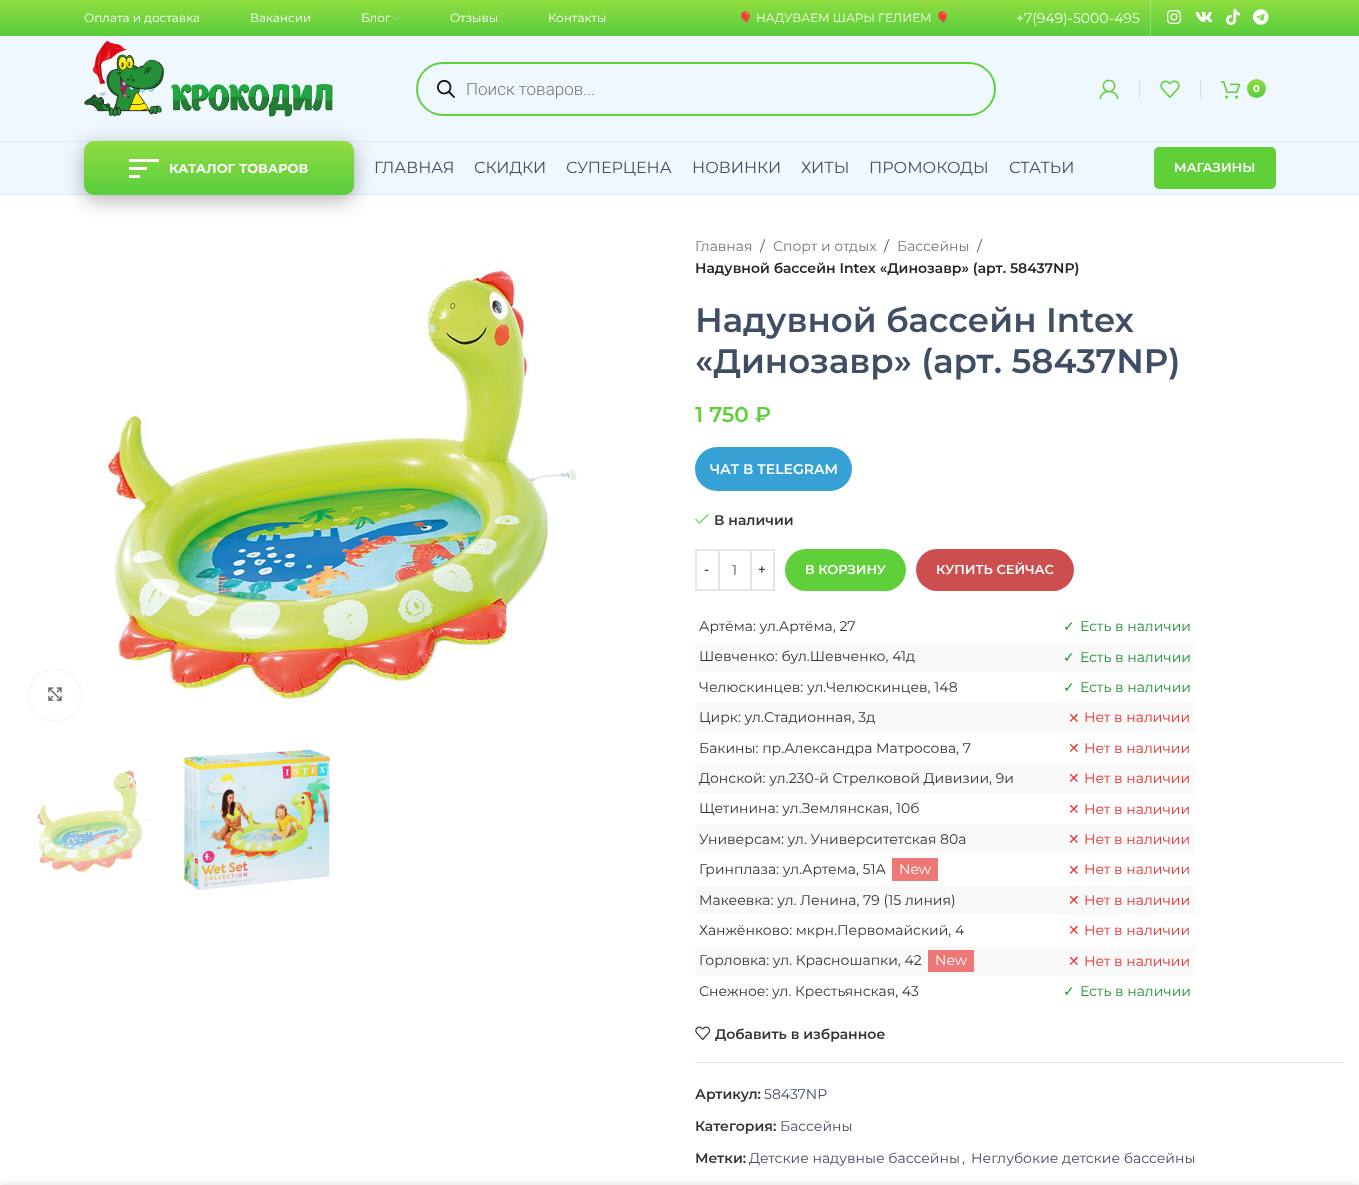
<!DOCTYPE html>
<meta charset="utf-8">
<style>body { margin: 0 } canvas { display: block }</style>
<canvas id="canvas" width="1359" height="1185"></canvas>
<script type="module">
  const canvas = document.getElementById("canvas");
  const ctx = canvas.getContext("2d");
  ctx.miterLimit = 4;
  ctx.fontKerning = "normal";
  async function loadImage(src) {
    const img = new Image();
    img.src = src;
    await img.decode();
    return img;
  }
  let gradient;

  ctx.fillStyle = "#ffffff";
  ctx.fillRect(0, 0, 1359, 1185);
  gradient = ctx.createLinearGradient(680, 0, 680, 36);
  gradient.addColorStop(0, "#90dd40");
  gradient.addColorStop(1, "#58cd3c");
  ctx.fillStyle = gradient;
  ctx.fillRect(0, 0, 1359, 36);
  gradient = ctx.createLinearGradient(680, 0, 680, 36);
  gradient.addColorStop(0, "#ace670");
  gradient.addColorStop(1, "#82da6d");
  ctx.fillStyle = gradient;
  ctx.fillRect(1150, 0, 1, 36);
  ctx.font = "12px Montserrat";
  ctx.fillStyle = "#ffffff";
  ctx.fillText("Оплата и доставка", 84, 22);
  ctx.fillText("Вакансии", 250, 22);
  ctx.fillText("Блог", 361, 22);
  ctx.drawImage(await loadImage("img1.png"), 394, 17, 6, 3);
  ctx.fillText("Отзывы", 450, 22);
  ctx.fillText("Контакты", 548, 22);
  ctx.font = "12px Noto Color Emoji";
  ctx.fillStyle = "#f1fbec";
  ctx.fillText("🎈", 738, 22);
  ctx.font = "12px Montserrat";
  ctx.fillText("НАДУВАЕМ ШАРЫ ГЕЛИЕМ", 756, 22);
  ctx.font = "12px Noto Color Emoji";
  ctx.fillText("🎈", 935, 22);
  ctx.font = "14px Montserrat";
  ctx.fillText("+7(949)-5000-495", 1016, 23);
  ctx.drawImage(await loadImage("img2.png"), 1167, 10, 14, 14);
  ctx.drawImage(await loadImage("img3.png"), 1195, 12, 18, 10);
  ctx.drawImage(await loadImage("img4.png"), 1226, 9, 14, 16);
  ctx.drawImage(await loadImage("img5.png"), 1253, 9, 16, 16);
  ctx.fillStyle = "#eff8ff";
  ctx.fillRect(0, 36, 1359, 105);
  ctx.fillStyle = "#e8e8e8";
  ctx.fillRect(0, 141, 1359, 1);
  ctx.drawImage(await loadImage("img6.png"), 84, 41, 249, 76);
  ctx.beginPath();
  ctx.roundRect(417, 63, 578, 52, 26);
  ctx.strokeStyle = "#61d03d";
  ctx.lineWidth = 2;
  ctx.stroke();
  ctx.drawImage(await loadImage("img7.png"), 437, 80, 18, 18);
  ctx.font = "300 17px Roboto";
  ctx.fillStyle = "#767676";
  ctx.fillText("Поиск товаров...", 466, 95);
  ctx.drawImage(await loadImage("img8.png"), 1099, 79, 20, 20);
  ctx.fillStyle = "#d6dee4";
  ctx.fillRect(1139, 80, 1, 18);
  ctx.drawImage(await loadImage("img9.png"), 1160, 80, 20, 18);
  ctx.fillRect(1200, 80, 1, 18);
  ctx.drawImage(await loadImage("img10.png"), 1221, 81, 20, 18);
  gradient = ctx.createLinearGradient(1257, 79, 1257, 98);
  gradient.addColorStop(0, "#90dd40");
  gradient.addColorStop(1, "#58cd3c");
  ctx.fillStyle = gradient;
  ctx.beginPath();
  ctx.arc(1256.5, 88.5, 9.5, 0, Math.PI * 2);
  ctx.fill();
  ctx.font = "bold 10px Montserrat";
  ctx.fillStyle = "#ffffff";
  ctx.fillText("0", 1253, 92);
  ctx.fillStyle = "#eff8ff";
  ctx.fillRect(0, 142, 1359, 52);
  ctx.fillStyle = "#e8e8e8";
  ctx.fillRect(0, 194, 1359, 1);
  ctx.fillStyle = "rgba(0, 0, 0, 0.3)";
  ctx.filter = "blur(10px)";
  ctx.beginPath();
  ctx.roundRect(84, 146, 270, 54, 10);
  ctx.fill();
  ctx.filter = "none";
  gradient = ctx.createLinearGradient(219, 141, 219, 195);
  gradient.addColorStop(0, "#90dd40");
  gradient.addColorStop(1, "#58cd3c");
  ctx.fillStyle = gradient;
  ctx.beginPath();
  ctx.roundRect(84, 141, 270, 54, 10);
  ctx.fill();
  ctx.fillStyle = "#ffffff";
  ctx.fillRect(129, 159, 30, 3);
  ctx.fillRect(129, 167, 18, 3);
  ctx.fillRect(129, 175, 11, 3);
  ctx.font = "bold 13px Montserrat";
  ctx.fillText("КАТАЛОГ ТОВАРОВ", 169, 173);
  ctx.font = "16px Montserrat";
  ctx.fillStyle = "#404e65";
  ctx.fillText("ГЛАВНАЯ", 374, 173);
  ctx.fillText("СКИДКИ", 474, 173);
  ctx.fillText("СУПЕРЦЕНА", 566, 173);
  ctx.fillText("НОВИНКИ", 692, 173);
  ctx.fillText("ХИТЫ", 801, 173);
  ctx.fillText("ПРОМОКОДЫ", 869, 173);
  ctx.fillText("СТАТЬИ", 1009, 173);
  ctx.fillStyle = "#60d03a";
  ctx.beginPath();
  ctx.roundRect(1154, 147, 122, 42, 5);
  ctx.fill();
  ctx.font = "600 13px Montserrat";
  ctx.fillStyle = "#ffffff";
  ctx.fillText("МАГАЗИНЫ", 1174, 172);
  ctx.fillStyle = "rgba(0, 0, 0, 0.08)";
  ctx.filter = "blur(2.5px)";
  ctx.beginPath();
  ctx.roundRect(30, 670, 50, 50, 25);
  ctx.fill();
  ctx.filter = "none";
  ctx.fillStyle = "#ffffff";
  ctx.beginPath();
  ctx.arc(55, 695, 25, 0, Math.PI * 2);
  ctx.fill();
  ctx.drawImage(await loadImage("img11.png"), 48, 687, 14, 14);
  ctx.drawImage(await loadImage("img12.png"), 105, 269, 472, 434);
  ctx.drawImage(await loadImage("img13.png"), 37, 770, 112, 103);
  ctx.drawImage(await loadImage("img14.png"), 184, 749, 146, 141);
  ctx.font = "14px Montserrat";
  ctx.fillStyle = "#767676";
  ctx.fillText("Главная", 695, 251);
  ctx.fillStyle = "#404e65";
  ctx.fillText("/", 760, 251);
  ctx.fillStyle = "#767676";
  ctx.fillText("Спорт и отдых", 773, 251);
  ctx.fillStyle = "#404e65";
  ctx.fillText("/", 884, 251);
  ctx.fillStyle = "#767676";
  ctx.fillText("Бассейны", 897, 251);
  ctx.fillStyle = "#404e65";
  ctx.fillText("/", 977, 251);
  ctx.font = "600 14px Montserrat";
  ctx.fillStyle = "#242424";
  ctx.fillText("Надувной бассейн Intex «Динозавр» (арт. 58437NP)", 695, 273);
  ctx.font = "600 34px Montserrat";
  ctx.fillStyle = "#404e65";
  ctx.fillText("Надувной бассейн Intex", 695, 332);
  ctx.fillText("«Динозавр» (арт. 58437NP)", 695, 373);
  ctx.font = "600 21.5px Montserrat";
  ctx.fillStyle = "#60d03a";
  ctx.fillText("1 750 ₽", 695, 422);
  ctx.fillStyle = "#36a1d4";
  ctx.beginPath();
  ctx.roundRect(695, 447, 157, 44, 22);
  ctx.fill();
  ctx.font = "600 14px Montserrat";
  ctx.fillStyle = "#ffffff";
  ctx.fillText("ЧАТ В TELEGRAM", 710, 474);
  ctx.drawImage(await loadImage("img15.png"), 695, 513, 14, 11);
  ctx.fillStyle = "#333333";
  ctx.fillText("В наличии", 714, 525);
  ctx.strokeStyle = "#e6e6e6";
  ctx.strokeRect(696, 550, 23, 40);
  ctx.font = "600 13px Montserrat";
  ctx.fillStyle = "#404e65";
  ctx.fillText("-", 704, 574);
  ctx.fillStyle = "#e6e6e6";
  ctx.fillRect(720, 549, 30, 2);
  ctx.fillRect(720, 589, 30, 2);
  ctx.font = "14px Montserrat";
  ctx.fillStyle = "#404e65";
  ctx.fillText("1", 732, 575);
  ctx.strokeRect(751, 550, 23, 40);
  ctx.font = "600 13px Montserrat";
  ctx.fillText("+", 758, 574);
  ctx.fillStyle = "#60d03a";
  ctx.beginPath();
  ctx.roundRect(785, 549, 121, 42, 21);
  ctx.fill();
  ctx.fillStyle = "#ffffff";
  ctx.fillText("В КОРЗИНУ", 805, 574);
  ctx.fillStyle = "#cd4e4e";
  ctx.beginPath();
  ctx.roundRect(916, 549, 158, 42, 21);
  ctx.fill();
  ctx.fillStyle = "#ffffff";
  ctx.fillText("КУПИТЬ СЕЙЧАС", 936, 574);
  ctx.font = "14px Montserrat";
  ctx.fillStyle = "#333333";
  ctx.fillText("Артёма: ул.Артёма, 27", 699, 631);
  ctx.font = "14px DejaVu Sans";
  ctx.fillStyle = "#249038";
  ctx.fillText("✓", 1063, 631);
  ctx.font = "14px Montserrat";
  ctx.fillText("Есть в наличии", 1080, 631);
  ctx.fillStyle = "#f9f9f9";
  ctx.fillRect(695, 642, 500, 30);
  ctx.fillStyle = "#333333";
  ctx.fillText("Шевченко: бул.Шевченко, 41д", 699, 661);
  ctx.font = "14px DejaVu Sans";
  ctx.fillStyle = "#249038";
  ctx.fillText("✓", 1063, 662);
  ctx.font = "14px Montserrat";
  ctx.fillText("Есть в наличии", 1080, 662);
  ctx.fillStyle = "#333333";
  ctx.fillText("Челюскинцев: ул.Челюскинцев, 148", 699, 692);
  ctx.font = "14px DejaVu Sans";
  ctx.fillStyle = "#249038";
  ctx.fillText("✓", 1063, 692);
  ctx.font = "14px Montserrat";
  ctx.fillText("Есть в наличии", 1080, 692);
  ctx.fillStyle = "#f9f9f9";
  ctx.fillRect(695, 702, 500, 31);
  ctx.fillStyle = "#333333";
  ctx.fillText("Цирк: ул.Стадионная, 3д", 699, 722);
  ctx.font = "14px DejaVu Sans";
  ctx.fillStyle = "#e63030";
  ctx.fillText("✕", 1068, 723);
  ctx.font = "14px Montserrat";
  ctx.fillText("Нет в наличии", 1084, 722);
  ctx.fillStyle = "#333333";
  ctx.fillText("Бакины: пр.Александра Матросова, 7", 699, 753);
  ctx.font = "14px DejaVu Sans";
  ctx.fillStyle = "#e63030";
  ctx.fillText("✕", 1068, 753);
  ctx.font = "14px Montserrat";
  ctx.fillText("Нет в наличии", 1084, 753);
  ctx.fillStyle = "#f9f9f9";
  ctx.fillRect(695, 763, 500, 31);
  ctx.fillStyle = "#333333";
  ctx.fillText("Донской: ул.230-й Стрелковой Дивизии, 9и", 699, 783);
  ctx.font = "14px DejaVu Sans";
  ctx.fillStyle = "#e63030";
  ctx.fillText("✕", 1068, 783);
  ctx.font = "14px Montserrat";
  ctx.fillText("Нет в наличии", 1084, 783);
  ctx.fillStyle = "#333333";
  ctx.fillText("Щетинина: ул.Землянская, 10б", 699, 813);
  ctx.font = "14px DejaVu Sans";
  ctx.fillStyle = "#e63030";
  ctx.fillText("✕", 1068, 814);
  ctx.font = "14px Montserrat";
  ctx.fillText("Нет в наличии", 1084, 814);
  ctx.fillStyle = "#f9f9f9";
  ctx.fillRect(695, 824, 500, 30);
  ctx.fillStyle = "#333333";
  ctx.fillText("Универсам: ул. Университетская 80а", 699, 844);
  ctx.font = "14px DejaVu Sans";
  ctx.fillStyle = "#e63030";
  ctx.fillText("✕", 1068, 844);
  ctx.font = "14px Montserrat";
  ctx.fillText("Нет в наличии", 1084, 844);
  ctx.fillStyle = "#333333";
  ctx.fillText("Гринплаза: ул.Артема, 51А", 699, 874);
  ctx.fillStyle = "#ee7777";
  ctx.fillRect(892, 858, 46, 23);
  ctx.fillStyle = "#ffffff";
  ctx.fillText("New", 899, 874);
  ctx.font = "14px DejaVu Sans";
  ctx.fillStyle = "#e63030";
  ctx.fillText("✕", 1068, 875);
  ctx.font = "14px Montserrat";
  ctx.fillText("Нет в наличии", 1084, 874);
  ctx.fillStyle = "#f9f9f9";
  ctx.fillRect(695, 885, 500, 30);
  ctx.fillStyle = "#333333";
  ctx.fillText("Макеевка: ул. Ленина, 79 (15 линия)", 699, 905);
  ctx.font = "14px DejaVu Sans";
  ctx.fillStyle = "#e63030";
  ctx.fillText("✕", 1068, 905);
  ctx.font = "14px Montserrat";
  ctx.fillText("Нет в наличии", 1084, 905);
  ctx.fillStyle = "#333333";
  ctx.fillText("Ханжёнково: мкрн.Первомайский, 4", 699, 935);
  ctx.font = "14px DejaVu Sans";
  ctx.fillStyle = "#e63030";
  ctx.fillText("✕", 1068, 935);
  ctx.font = "14px Montserrat";
  ctx.fillText("Нет в наличии", 1084, 935);
  ctx.fillStyle = "#f9f9f9";
  ctx.fillRect(695, 946, 500, 30);
  ctx.fillStyle = "#333333";
  ctx.fillText("Горловка: ул. Красношапки, 42", 699, 965);
  ctx.fillStyle = "#ee7777";
  ctx.fillRect(928, 950, 46, 22);
  ctx.fillStyle = "#ffffff";
  ctx.fillText("New", 935, 965);
  ctx.font = "14px DejaVu Sans";
  ctx.fillStyle = "#e63030";
  ctx.fillText("✕", 1068, 966);
  ctx.font = "14px Montserrat";
  ctx.fillText("Нет в наличии", 1084, 966);
  ctx.fillStyle = "#333333";
  ctx.fillText("Снежное: ул. Крестьянская, 43", 699, 996);
  ctx.font = "14px DejaVu Sans";
  ctx.fillStyle = "#249038";
  ctx.fillText("✓", 1063, 996);
  ctx.font = "14px Montserrat";
  ctx.fillText("Есть в наличии", 1080, 996);
  ctx.drawImage(await loadImage("img16.png"), 695, 1026, 16, 14);
  ctx.font = "600 14px Montserrat";
  ctx.fillStyle = "#333333";
  ctx.fillText("Добавить в избранное", 715, 1039);
  ctx.fillStyle = "#e4e4e4";
  ctx.fillRect(695, 1062, 649, 1);
  ctx.fillStyle = "#333333";
  ctx.fillText("Артикул:", 695, 1099);
  ctx.font = "14px Montserrat";
  ctx.fillStyle = "#404e65";
  ctx.fillText("58437NP", 764, 1099);
  ctx.font = "600 14px Montserrat";
  ctx.fillStyle = "#333333";
  ctx.fillText("Категория:", 695, 1131);
  ctx.font = "14px Montserrat";
  ctx.fillStyle = "#404e65";
  ctx.fillText("Бассейны", 780, 1131);
  ctx.font = "600 14px Montserrat";
  ctx.fillStyle = "#333333";
  ctx.fillText("Метки:", 695, 1163);
  ctx.font = "14px Montserrat";
  ctx.fillStyle = "#404e65";
  ctx.fillText("Детские надувные бассейны", 749, 1163);
  ctx.fillText(",", 962, 1163);
  ctx.fillText("Неглубокие детские бассейны", 971, 1163);
  ctx.fillStyle = "rgba(0, 0, 0, 0.14)";
  ctx.filter = "blur(4.5px)";
  ctx.beginPath();
  ctx.rect(0, 1185, 1359, 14);
  ctx.fill();
  ctx.filter = "none";
</script>
